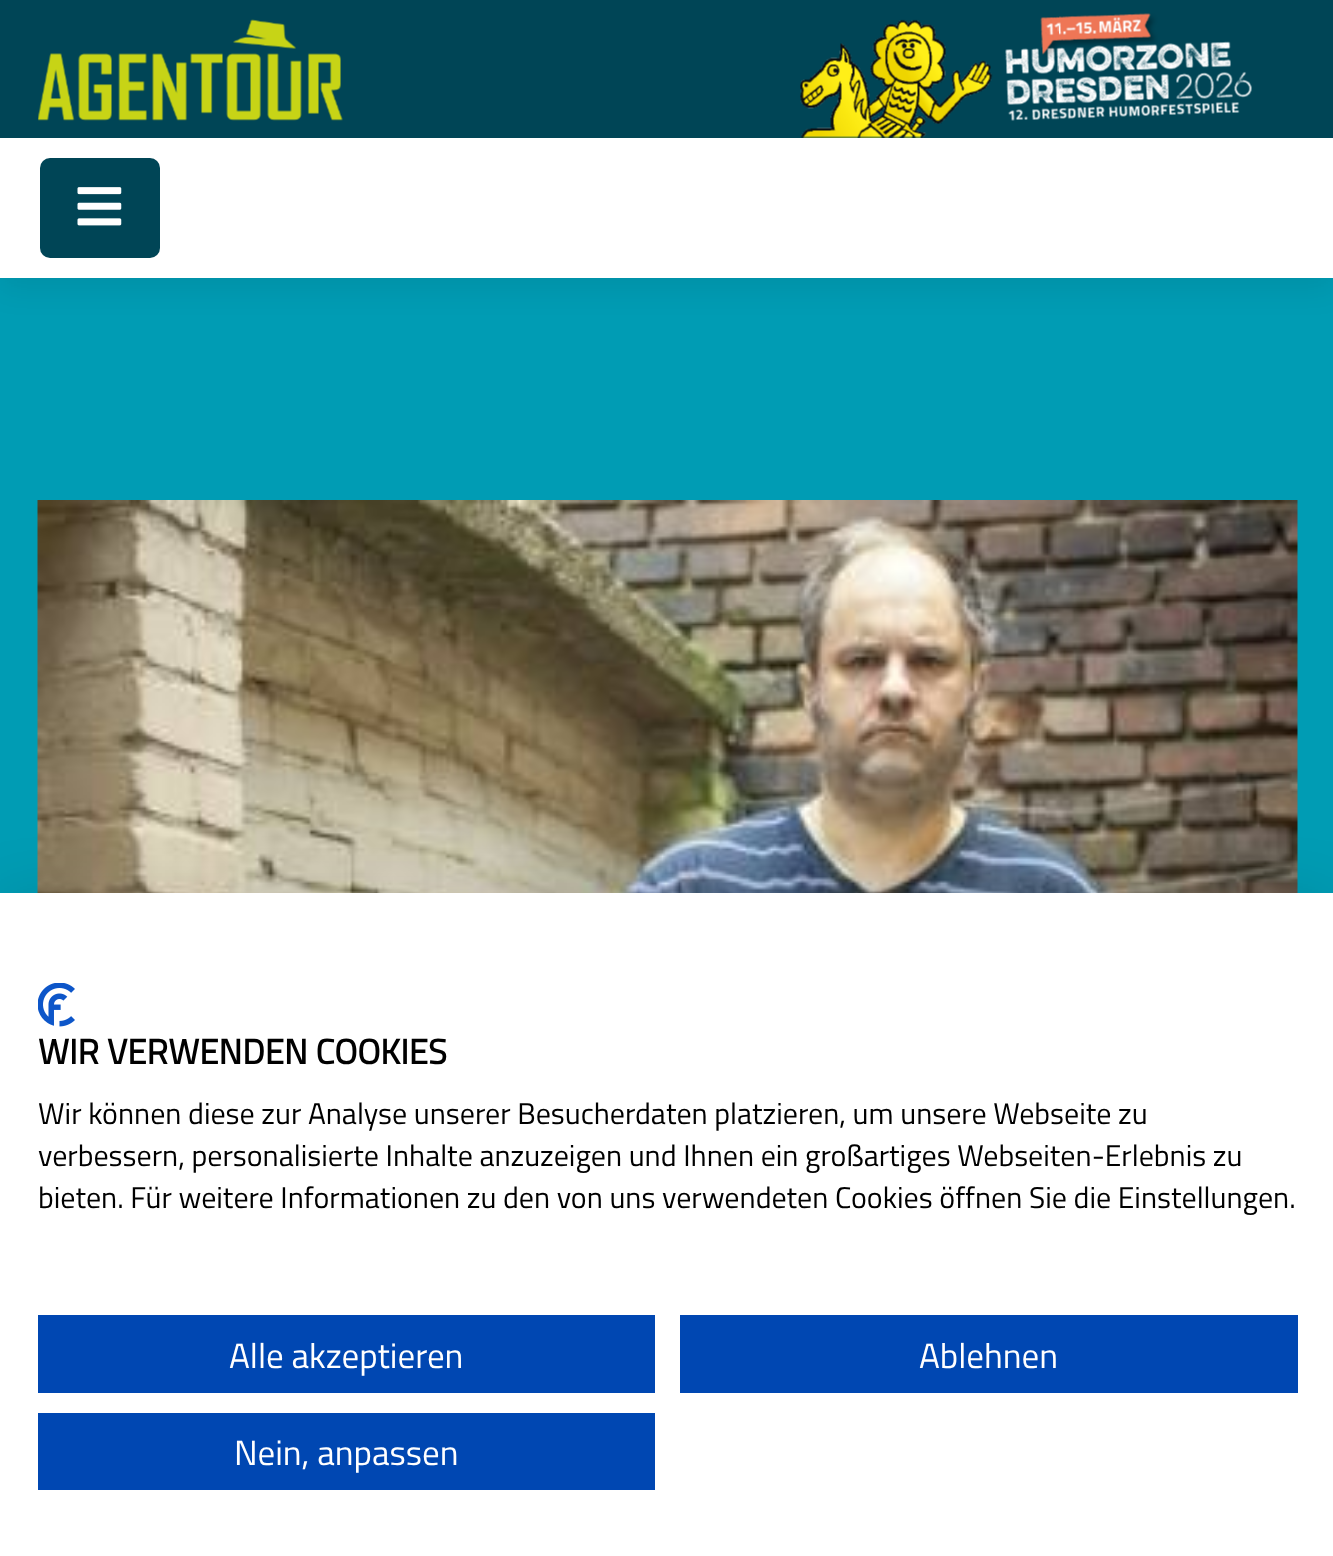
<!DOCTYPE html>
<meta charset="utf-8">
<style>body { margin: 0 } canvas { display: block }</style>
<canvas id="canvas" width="1333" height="1556"></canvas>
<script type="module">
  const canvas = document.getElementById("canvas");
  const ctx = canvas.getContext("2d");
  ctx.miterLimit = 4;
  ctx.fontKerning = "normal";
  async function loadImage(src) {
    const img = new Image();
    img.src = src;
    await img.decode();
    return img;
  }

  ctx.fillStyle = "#009cb4";
  ctx.fillRect(0, 0, 1333, 1556);
  ctx.fillStyle = "rgba(0, 0, 0, 0.08)";
  ctx.filter = "blur(15px)";
  ctx.beginPath();
  ctx.rect(0, 10, 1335, 278);
  ctx.fill();
  ctx.filter = "none";
  ctx.fillStyle = "#004556";
  ctx.fillRect(0, 0, 1333, 138);
  ctx.drawImage(await loadImage("img1.png"), 38, 19, 305, 102);
  ctx.drawImage(await loadImage("img2.png"), 800, 13, 452, 125);
  ctx.fillStyle = "#ffffff";
  ctx.fillRect(0, 138, 1333, 140);
  ctx.fillStyle = "#004556";
  ctx.beginPath();
  ctx.roundRect(40, 158, 120, 100, 10);
  ctx.fill();
  ctx.drawImage(await loadImage("img3.png"), 77, 187, 45, 39);
  ctx.drawImage(await loadImage("img4.png"), 37, 500, 1261, 393);
  ctx.fillStyle = "rgba(0, 0, 0, 0.1)";
  ctx.filter = "blur(30px)";
  ctx.beginPath();
  ctx.rect(0, 893, 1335, 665);
  ctx.fill();
  ctx.filter = "none";
  ctx.fillStyle = "#ffffff";
  ctx.fillRect(0, 893, 1333, 663);
  ctx.drawImage(await loadImage("img5.png"), 38, 983, 37, 44);
  ctx.font = "bold 35px Titillium Web";
  ctx.fillStyle = "#000000";
  ctx.fillText("WIR VERWENDEN COOKIES", 38, 1064);
  ctx.font = "30px Titillium Web";
  ctx.fillText("Wir können diese zur Analyse unserer Besucherdaten platzieren, um unsere Webseite zu", 38, 1124);
  ctx.fillText("verbessern, personalisierte Inhalte anzuzeigen und Ihnen ein großartiges Webseiten-Erlebnis zu", 38, 1166);
  ctx.fillText("bieten. Für weitere Informationen zu den von uns verwendeten Cookies öffnen Sie die Einstellungen.", 38, 1208);
  ctx.fillStyle = "#0047b2";
  ctx.fillRect(38, 1315, 617, 78);
  ctx.font = "35px Titillium Web";
  ctx.fillStyle = "#ffffff";
  ctx.fillText("Alle akzeptieren", 229, 1368);
  ctx.fillStyle = "#0047b2";
  ctx.fillRect(680, 1315, 618, 78);
  ctx.fillStyle = "#ffffff";
  ctx.fillText("Ablehnen", 919, 1368);
  ctx.fillStyle = "#0047b2";
  ctx.fillRect(38, 1413, 617, 77);
  ctx.fillStyle = "#ffffff";
  ctx.fillText("Nein, anpassen", 234, 1465);
</script>
